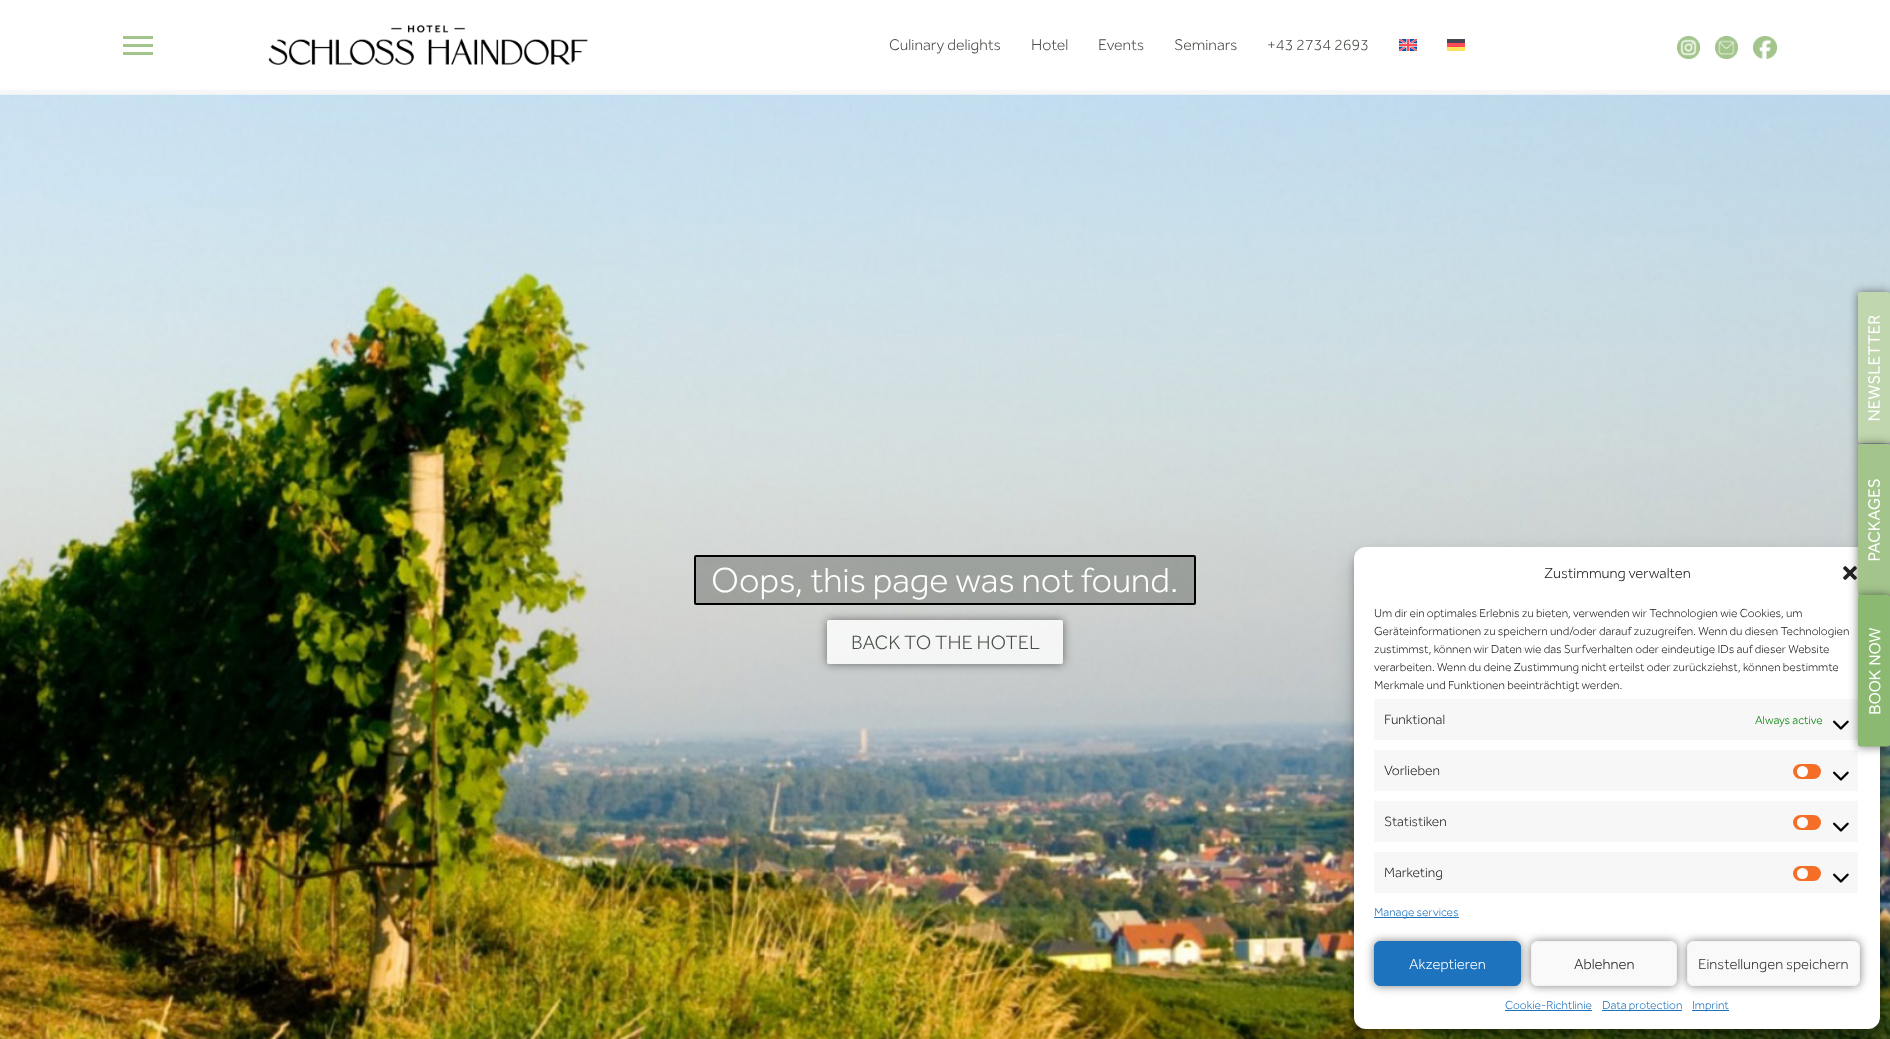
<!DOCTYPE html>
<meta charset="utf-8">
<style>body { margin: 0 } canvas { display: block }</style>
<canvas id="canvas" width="1890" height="1039"></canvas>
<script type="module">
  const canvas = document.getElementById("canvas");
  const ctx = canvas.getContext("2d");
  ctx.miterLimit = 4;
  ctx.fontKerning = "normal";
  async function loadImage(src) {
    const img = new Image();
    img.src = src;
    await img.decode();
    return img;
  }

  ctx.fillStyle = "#ffffff";
  ctx.fillRect(0, 0, 1890, 1039);
  ctx.fillStyle = "#a3c58c";
  ctx.fillRect(123, 36, 30, 3);
  ctx.fillRect(123, 44, 30, 3);
  ctx.fillRect(123, 52, 30, 3);
  ctx.drawImage(await loadImage("img1.png"), 268, 25, 320, 40);
  ctx.font = "300 16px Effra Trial";
  ctx.fillStyle = "#494e47";
  ctx.fillText("Culinary delights", 889, 50);
  ctx.fillText("Hotel", 1031, 50);
  ctx.fillText("Events", 1098, 50);
  ctx.fillText("Seminars", 1174, 50);
  ctx.fillText("+43 2734 2693", 1267, 50);
  ctx.drawImage(await loadImage("img2.png"), 1399, 39, 18, 12);
  ctx.fillStyle = "#ff4b55";
  ctx.fillRect(1447, 43, 18, 4);
  ctx.fillStyle = "#ffe15a";
  ctx.fillRect(1447, 47, 18, 4);
  ctx.fillStyle = "#464655";
  ctx.fillRect(1447, 39, 18, 4);
  ctx.drawImage(await loadImage("img3.png"), 1677, 36, 23, 23);
  ctx.drawImage(await loadImage("img4.png"), 1715, 36, 23, 23);
  ctx.drawImage(await loadImage("img5.png"), 1753, 36, 24, 23);
  ctx.drawImage(await loadImage("img6.png"), 0, 90, 1890, 949);
  ctx.fillStyle = "rgba(73, 78, 71, 0.38)";
  ctx.beginPath();
  ctx.roundRect(695, 556, 500, 48, 1);
  ctx.fill();
  ctx.strokeStyle = "#000000";
  ctx.lineWidth = 2;
  ctx.stroke();
  ctx.font = "300 36px Effra Trial";
  ctx.fillStyle = "#ffffff";
  ctx.fillText("Oops, this page was not found.", 711, 592);
  ctx.save();
  ctx.beginPath();
  ctx.moveTo(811, 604);
  ctx.lineTo(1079, 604);
  ctx.lineTo(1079, 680);
  ctx.lineTo(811, 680);
  ctx.closePath();
  ctx.moveTo(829, 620);
  ctx.lineTo(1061, 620);
  ctx.bezierCurveTo(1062, 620, 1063, 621, 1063, 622);
  ctx.lineTo(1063, 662);
  ctx.bezierCurveTo(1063, 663, 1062, 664, 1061, 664);
  ctx.lineTo(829, 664);
  ctx.bezierCurveTo(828, 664, 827, 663, 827, 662);
  ctx.lineTo(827, 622);
  ctx.bezierCurveTo(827, 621, 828, 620, 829, 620);
  ctx.closePath();
  ctx.clip("evenodd");
  ctx.fillStyle = "rgba(0, 0, 0, 0.5)";
  ctx.filter = "blur(5px)";
  ctx.beginPath();
  ctx.roundRect(827, 620, 236, 44, 2);
  ctx.fill();
  ctx.filter = "none";
  ctx.restore();
  ctx.fillStyle = "rgba(255, 255, 255, 0.8)";
  ctx.beginPath();
  ctx.roundRect(827, 620, 236, 44, 2);
  ctx.fill();
  ctx.font = "300 20px Effra Trial";
  ctx.fillStyle = "#494e47";
  ctx.fillText("BACK TO THE HOTEL", 851, 649);
  ctx.fillStyle = "rgba(0, 0, 0, 0.5)";
  ctx.filter = "blur(5px)";
  ctx.beginPath();
  ctx.rect(1858, 292, 32, 152);
  ctx.fill();
  ctx.filter = "none";
  ctx.drawImage(await loadImage("img7.png"), 1858, 292, 32, 151);
  ctx.fillStyle = "rgba(0, 0, 0, 0.23)";
  ctx.filter = "blur(3px)";
  ctx.beginPath();
  ctx.roundRect(1354, 553, 526, 482, 12);
  ctx.fill();
  ctx.filter = "none";
  ctx.fillStyle = "rgba(0, 0, 0, 0.19)";
  ctx.filter = "blur(10px)";
  ctx.beginPath();
  ctx.roundRect(1354, 557, 526, 482, 12);
  ctx.fill();
  ctx.filter = "none";
  ctx.fillStyle = "#ffffff";
  ctx.beginPath();
  ctx.roundRect(1354, 547, 526, 482, 12);
  ctx.fill();
  ctx.drawImage(await loadImage("img10.png"), 1843, 566, 14, 14);
  ctx.fillStyle = "rgba(0, 0, 0, 0.5)";
  ctx.filter = "blur(5px)";
  ctx.beginPath();
  ctx.rect(1858, 444, 32, 151);
  ctx.fill();
  ctx.filter = "none";
  ctx.drawImage(await loadImage("img8.png"), 1858, 444, 32, 151);
  ctx.fillStyle = "#f7f7f7";
  ctx.fillRect(1374, 699, 484, 41);
  ctx.drawImage(await loadImage("img11.png"), 1833, 720, 16, 10);
  ctx.fillRect(1374, 750, 484, 41);
  ctx.fillStyle = "rgba(0, 0, 0, 0.5)";
  ctx.filter = "blur(5px)";
  ctx.beginPath();
  ctx.rect(1858, 595, 32, 152);
  ctx.fill();
  ctx.filter = "none";
  ctx.drawImage(await loadImage("img9.png"), 1858, 595, 32, 152);
  ctx.font = "300 15px Effra Trial";
  ctx.fillStyle = "#222222";
  ctx.fillText("Zustimmung verwalten", 1544, 578);
  ctx.font = "300 12px Effra Trial";
  ctx.fillText("Um dir ein optimales Erlebnis zu bieten, verwenden wir Technologien wie Cookies, um", 1374, 617);
  ctx.fillText("Geräteinformationen zu speichern und/oder darauf zuzugreifen. Wenn du diesen Technologien", 1374, 635);
  ctx.fillText("zustimmst, können wir Daten wie das Surfverhalten oder eindeutige IDs auf dieser Website", 1374, 653);
  ctx.fillText("verarbeiten. Wenn du deine Zustimmung nicht erteilst oder zurückziehst, können bestimmte", 1374, 671);
  ctx.fillText("Merkmale und Funktionen beeinträchtigt werden.", 1374, 689);
  ctx.font = "300 14px Effra Trial";
  ctx.fillText("Funktional", 1384, 724);
  ctx.font = "300 12px Effra Trial";
  ctx.fillStyle = "#008000";
  ctx.fillText("Always active", 1755, 724);
  ctx.font = "300 14px Effra Trial";
  ctx.fillStyle = "#222222";
  ctx.fillText("Vorlieben", 1384, 775);
  ctx.fillStyle = "#f56e28";
  ctx.beginPath();
  ctx.roundRect(1793, 764, 28, 15, 7.5);
  ctx.fill();
  ctx.fillStyle = "#ffffff";
  ctx.beginPath();
  ctx.arc(1802.5, 771.5, 5.5, 0, Math.PI * 2);
  ctx.fill();
  ctx.drawImage(await loadImage("img11.png"), 1833, 771, 16, 10);
  ctx.fillStyle = "#f7f7f7";
  ctx.fillRect(1374, 801, 484, 41);
  ctx.fillStyle = "#222222";
  ctx.fillText("Statistiken", 1384, 826);
  ctx.fillStyle = "#f56e28";
  ctx.beginPath();
  ctx.roundRect(1793, 815, 28, 15, 7.5);
  ctx.fill();
  ctx.fillStyle = "#ffffff";
  ctx.beginPath();
  ctx.arc(1802.5, 822.5, 5.5, 0, Math.PI * 2);
  ctx.fill();
  ctx.drawImage(await loadImage("img11.png"), 1833, 822, 16, 10);
  ctx.fillStyle = "#f7f7f7";
  ctx.fillRect(1374, 852, 484, 41);
  ctx.fillStyle = "#222222";
  ctx.fillText("Marketing", 1384, 877);
  ctx.fillStyle = "#f56e28";
  ctx.beginPath();
  ctx.roundRect(1793, 866, 28, 15, 7.5);
  ctx.fill();
  ctx.fillStyle = "#ffffff";
  ctx.beginPath();
  ctx.arc(1802.5, 873.5, 5.5, 0, Math.PI * 2);
  ctx.fill();
  ctx.drawImage(await loadImage("img11.png"), 1833, 873, 16, 10);
  ctx.fillStyle = "#1e73be";
  ctx.fillRect(1374, 917, 85, 1);
  ctx.font = "300 12px Effra Trial";
  ctx.fillText("Manage services", 1374, 916);
  ctx.fillStyle = "rgba(0, 0, 0, 0.5)";
  ctx.filter = "blur(5px)";
  ctx.beginPath();
  ctx.roundRect(1374, 941, 147, 45, 6);
  ctx.fill();
  ctx.filter = "none";
  ctx.fillStyle = "#1e73be";
  ctx.beginPath();
  ctx.roundRect(1374.5, 941.5, 146, 44, 5.5);
  ctx.fill();
  ctx.strokeStyle = "#1e73be";
  ctx.lineWidth = 1;
  ctx.stroke();
  ctx.font = "300 15px Effra Trial";
  ctx.fillStyle = "#ffffff";
  ctx.fillText("Akzeptieren", 1409, 969);
  ctx.fillStyle = "rgba(0, 0, 0, 0.5)";
  ctx.filter = "blur(5px)";
  ctx.beginPath();
  ctx.roundRect(1531, 941, 146, 45, 6);
  ctx.fill();
  ctx.filter = "none";
  ctx.fillStyle = "#f9f9f9";
  ctx.beginPath();
  ctx.roundRect(1531.5, 941.5, 145, 44, 5.5);
  ctx.fill();
  ctx.strokeStyle = "#f2f2f2";
  ctx.stroke();
  ctx.fillStyle = "#222222";
  ctx.fillText("Ablehnen", 1574, 969);
  ctx.fillStyle = "rgba(0, 0, 0, 0.5)";
  ctx.filter = "blur(5px)";
  ctx.beginPath();
  ctx.roundRect(1687, 941, 173, 45, 6);
  ctx.fill();
  ctx.filter = "none";
  ctx.fillStyle = "#f9f9f9";
  ctx.beginPath();
  ctx.roundRect(1687.5, 941.5, 172, 44, 5.5);
  ctx.fill();
  ctx.stroke();
  ctx.fillStyle = "#333333";
  ctx.fillText("Einstellungen speichern", 1698, 969);
  ctx.font = "300 12px Effra Trial";
  ctx.fillStyle = "#1e73be";
  ctx.fillText("Cookie-Richtlinie", 1505, 1009);
  ctx.fillRect(1505, 1010, 87, 1);
  ctx.fillRect(1602, 1010, 80, 1);
  ctx.fillText("Data protection", 1602, 1009);
  ctx.fillRect(1692, 1010, 37, 1);
  ctx.fillText("Imprint", 1692, 1009);
</script>
